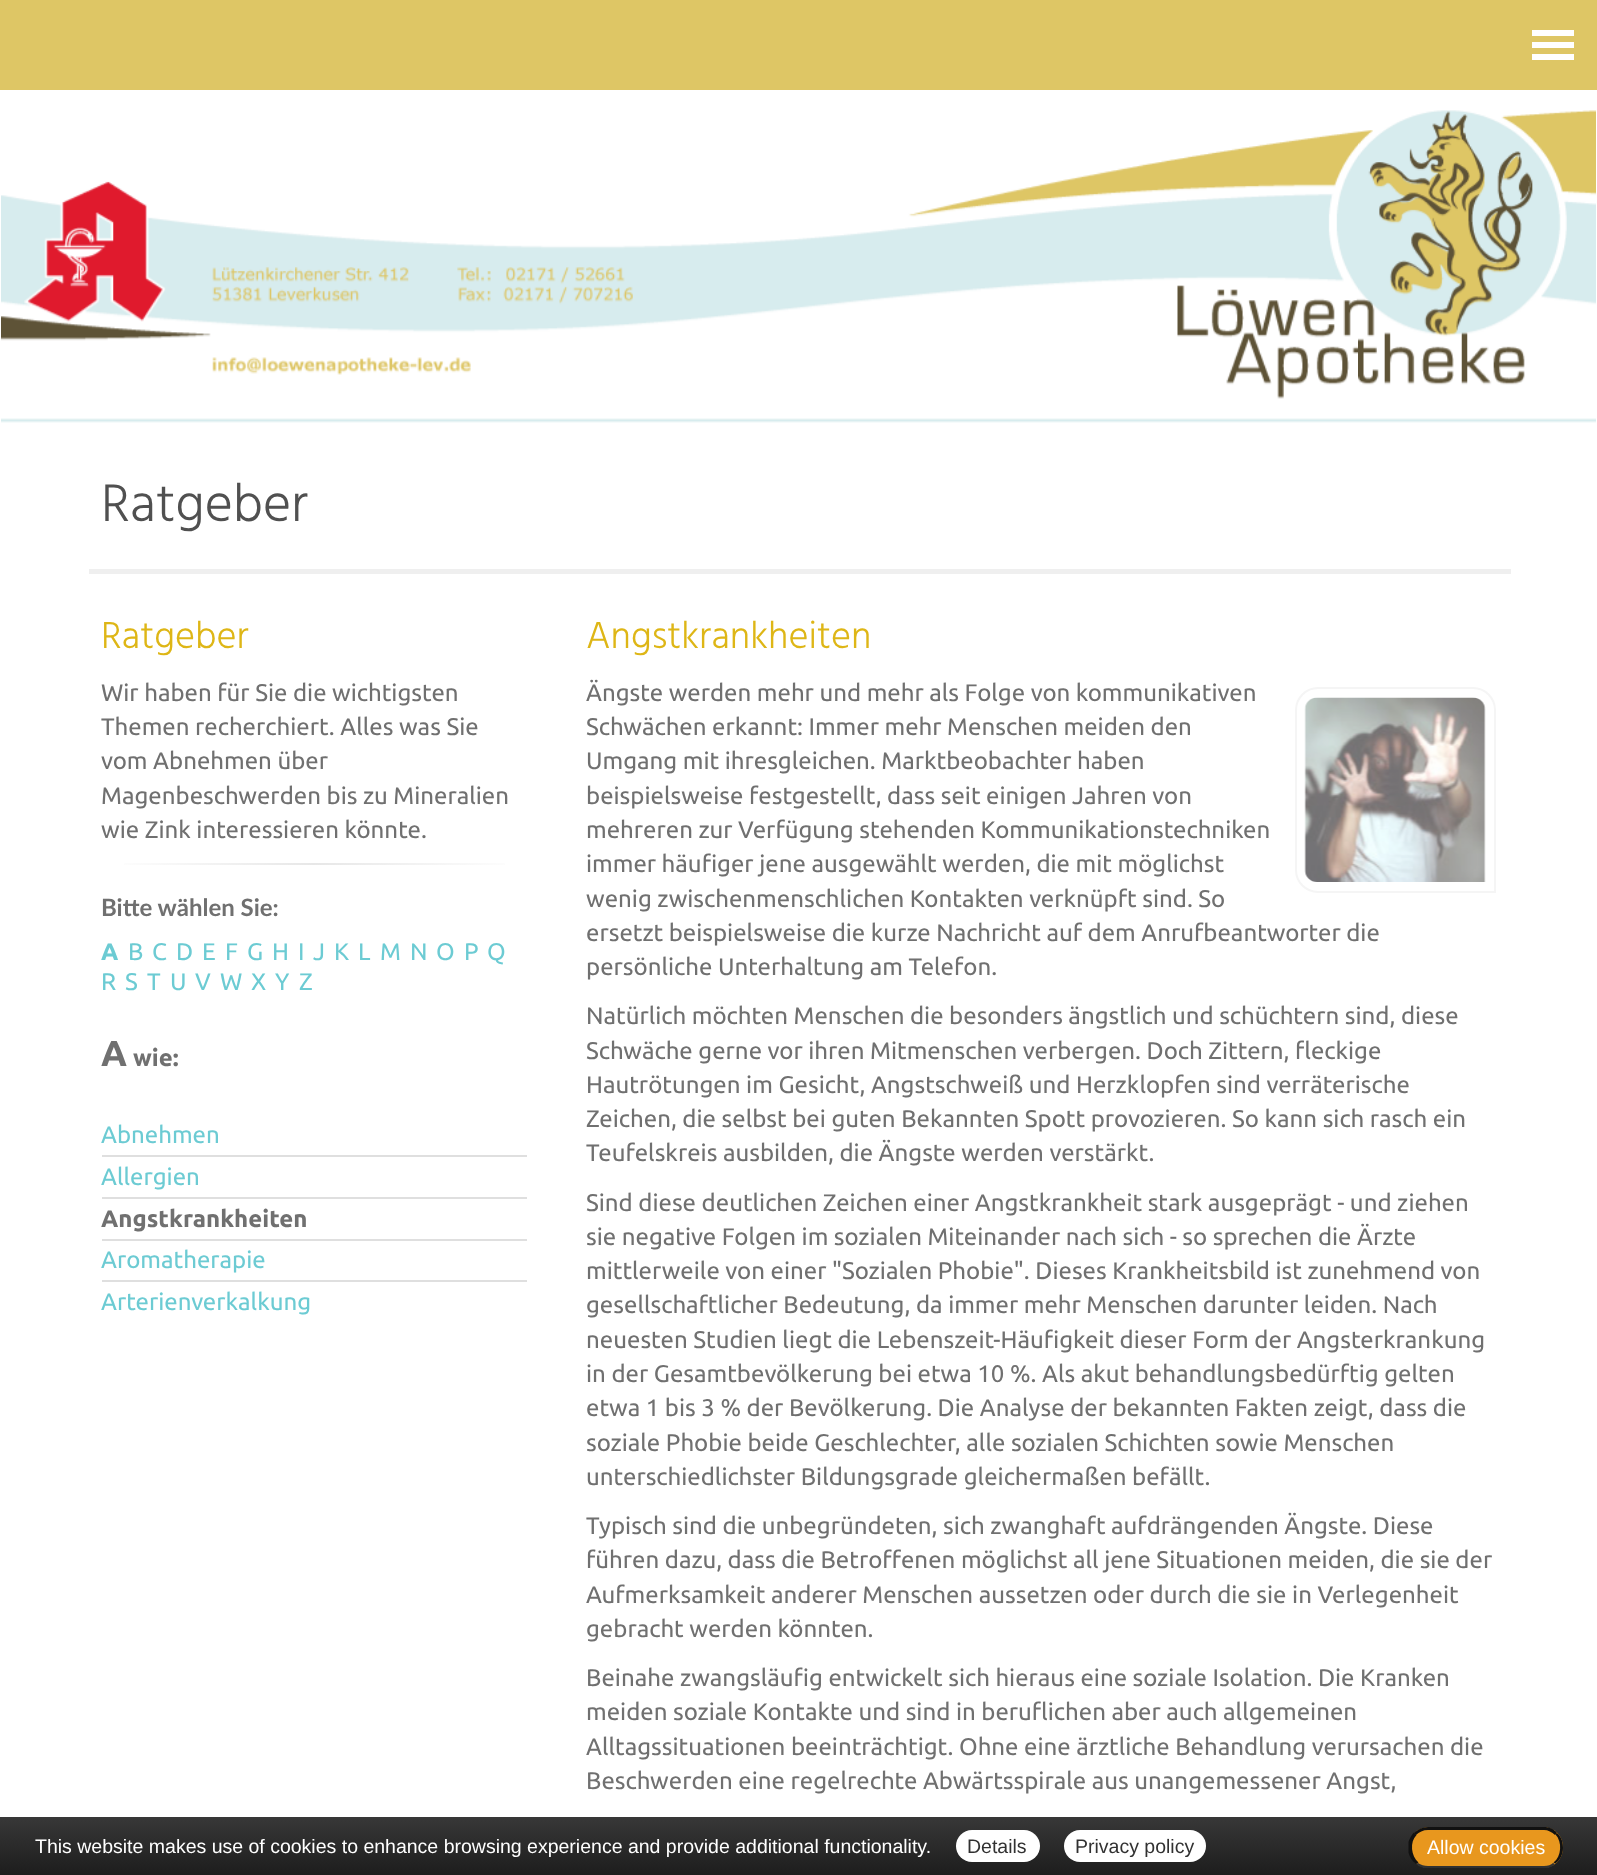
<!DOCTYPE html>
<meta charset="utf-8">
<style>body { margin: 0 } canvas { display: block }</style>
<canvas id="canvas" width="1597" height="1875"></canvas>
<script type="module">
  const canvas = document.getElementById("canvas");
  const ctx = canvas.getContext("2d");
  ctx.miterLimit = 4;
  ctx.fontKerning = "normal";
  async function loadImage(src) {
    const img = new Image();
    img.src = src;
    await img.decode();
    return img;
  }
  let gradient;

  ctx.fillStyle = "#ffffff";
  ctx.fillRect(0, 0, 1597, 1875);
  ctx.fillStyle = "#dec665";
  ctx.fillRect(0, 0, 1597, 90);
  ctx.fillStyle = "#ffffff";
  ctx.fillRect(1532, 30, 42, 6);
  ctx.fillRect(1532, 42, 42, 6);
  ctx.fillRect(1532, 54, 42, 6);
  ctx.drawImage(await loadImage("img1.png"), 1, 110, 1595, 313);
  ctx.fillStyle = "#efefef";
  ctx.fillRect(89, 569, 1422, 5);
  ctx.font = "300 54px Hind";
  ctx.fillStyle = "#505050";
  ctx.fillText("Ratgeber", 101, 521);
  ctx.font = "300 38.5px Hind";
  ctx.fillStyle = "#deb616";
  ctx.fillText("Ratgeber", 101, 648);
  ctx.font = "24px Ubuntu";
  ctx.fillStyle = "#707070";
  ctx.fillText("Wir haben für Sie die wichtigsten", 101, 701);
  ctx.fillText("Themen recherchiert. Alles was Sie", 101, 735);
  ctx.fillText("vom Abnehmen über", 101, 769);
  ctx.fillText("Magenbeschwerden bis zu Mineralien", 101, 804);
  ctx.fillText("wie Zink interessieren könnte.", 101, 838);
  gradient = ctx.createLinearGradient(102, 863, 527, 863);
  gradient.addColorStop(0, "#ffffff");
  gradient.addColorStop(0.5, "#e7e7e7");
  gradient.addColorStop(1, "#ffffff");
  ctx.fillStyle = gradient;
  ctx.fillRect(124, 863, 381, 2);
  ctx.font = "bold 24px Lato";
  ctx.fillStyle = "#707070";
  ctx.fillText("Bitte wählen Sie:", 101, 916);
  ctx.font = "bold 24px Ubuntu";
  ctx.fillStyle = "#6ccbd3";
  ctx.fillText("A", 101, 960);
  ctx.font = "24px Ubuntu";
  ctx.fillText("B", 128, 960);
  ctx.fillText("C", 152, 960);
  ctx.fillText("D", 176, 960);
  ctx.fillText("E", 202, 960);
  ctx.fillText("F", 225, 960);
  ctx.fillText("G", 247, 960);
  ctx.fillText("H", 272, 960);
  ctx.fillText("I", 298, 960);
  ctx.fillText("J", 313, 960);
  ctx.fillText("K", 334, 960);
  ctx.fillText("L", 358, 960);
  ctx.fillText("M", 380, 960);
  ctx.fillText("N", 410, 960);
  ctx.fillText("O", 436, 960);
  ctx.fillText("P", 464, 960);
  ctx.fillText("Q", 487, 960);
  ctx.fillText("R", 101, 990);
  ctx.fillText("S", 125, 990);
  ctx.fillText("T", 147, 990);
  ctx.fillText("U", 170, 990);
  ctx.fillText("V", 195, 990);
  ctx.fillText("W", 220, 990);
  ctx.fillText("X", 251, 990);
  ctx.fillText("Y", 275, 990);
  ctx.fillText("Z", 299, 990);
  ctx.font = "bold 36px Ubuntu";
  ctx.fillStyle = "#707070";
  ctx.fillText("A", 101, 1066);
  ctx.font = "bold 24px Ubuntu";
  ctx.fillText("wie:", 133, 1066);
  ctx.font = "24px Ubuntu";
  ctx.fillStyle = "#6ccbd3";
  ctx.fillText("Abnehmen", 101, 1143);
  ctx.fillStyle = "#dfdfdf";
  ctx.fillRect(102, 1155, 425, 2);
  ctx.fillStyle = "#6ccbd3";
  ctx.fillText("Allergien", 101, 1185);
  ctx.fillStyle = "#dfdfdf";
  ctx.fillRect(102, 1197, 425, 2);
  ctx.font = "bold 24px Ubuntu";
  ctx.fillStyle = "#707070";
  ctx.fillText("Angstkrankheiten", 101, 1227);
  ctx.fillStyle = "#dfdfdf";
  ctx.fillRect(102, 1239, 425, 2);
  ctx.font = "24px Ubuntu";
  ctx.fillStyle = "#6ccbd3";
  ctx.fillText("Aromatherapie", 101, 1268);
  ctx.fillStyle = "#dfdfdf";
  ctx.fillRect(102, 1280, 425, 2);
  ctx.fillStyle = "#6ccbd3";
  ctx.fillText("Arterienverkalkung", 101, 1310);
  ctx.font = "300 38.5px Hind";
  ctx.fillStyle = "#deb616";
  ctx.fillText("Angstkrankheiten", 586, 648);
  ctx.font = "24px Ubuntu";
  ctx.fillStyle = "#707070";
  ctx.fillText("Ängste werden mehr und mehr als Folge von kommunikativen", 586, 701);
  ctx.fillText("Schwächen erkannt: Immer mehr Menschen meiden den", 586, 735);
  ctx.fillText("Umgang mit ihresgleichen. Marktbeobachter haben", 586, 769);
  ctx.fillText("beispielsweise festgestellt, dass seit einigen Jahren von", 586, 804);
  ctx.fillText("mehreren zur Verfügung stehenden Kommunikationstechniken", 586, 838);
  ctx.fillText("immer häufiger jene ausgewählt werden, die mit möglichst", 586, 872);
  ctx.fillText("wenig zwischenmenschlichen Kontakten verknüpft sind. So", 586, 907);
  ctx.fillText("ersetzt beispielsweise die kurze Nachricht auf dem Anrufbeantworter die", 586, 941);
  ctx.fillText("persönliche Unterhaltung am Telefon.", 586, 975);
  ctx.beginPath();
  ctx.roundRect(1296, 688, 199, 204, [22, 22, 0, 22]);
  ctx.strokeStyle = "#f5f5f5";
  ctx.lineWidth = 2;
  ctx.stroke();
  ctx.drawImage(await loadImage("img2.png"), 1304, 697, 182, 185);
  ctx.fillText("Natürlich möchten Menschen die besonders ängstlich und schüchtern sind, diese", 586, 1024);
  ctx.fillText("Schwäche gerne vor ihren Mitmenschen verbergen. Doch Zittern, fleckige", 586, 1059);
  ctx.fillText("Hautrötungen im Gesicht, Angstschweiß und Herzklopfen sind verräterische", 586, 1093);
  ctx.fillText("Zeichen, die selbst bei guten Bekannten Spott provozieren. So kann sich rasch ein", 586, 1127);
  ctx.fillText("Teufelskreis ausbilden, die Ängste werden verstärkt.", 586, 1161);
  ctx.fillText("Sind diese deutlichen Zeichen einer Angstkrankheit stark ausgeprägt - und ziehen", 586, 1211);
  ctx.fillText("sie negative Folgen im sozialen Miteinander nach sich - so sprechen die Ärzte", 586, 1245);
  ctx.fillText("mittlerweile von einer \"Sozialen Phobie\". Dieses Krankheitsbild ist zunehmend von", 586, 1279);
  ctx.fillText("gesellschaftlicher Bedeutung, da immer mehr Menschen darunter leiden. Nach", 586, 1313);
  ctx.fillText("neuesten Studien liegt die Lebenszeit-Häufigkeit dieser Form der Angsterkrankung", 586, 1348);
  ctx.fillText("in der Gesamtbevölkerung bei etwa 10 %. Als akut behandlungsbedürftig gelten", 586, 1382);
  ctx.fillText("etwa 1 bis 3 % der Bevölkerung. Die Analyse der bekannten Fakten zeigt, dass die", 586, 1416);
  ctx.fillText("soziale Phobie beide Geschlechter, alle sozialen Schichten sowie Menschen", 586, 1451);
  ctx.fillText("unterschiedlichster Bildungsgrade gleichermaßen befällt.", 586, 1485);
  ctx.fillText("Typisch sind die unbegründeten, sich zwanghaft aufdrängenden Ängste. Diese", 586, 1534);
  ctx.fillText("führen dazu, dass die Betroffenen möglichst all jene Situationen meiden, die sie der", 586, 1568);
  ctx.fillText("Aufmerksamkeit anderer Menschen aussetzen oder durch die sie in Verlegenheit", 586, 1603);
  ctx.fillText("gebracht werden könnten.", 586, 1637);
  ctx.fillText("Beinahe zwangsläufig entwickelt sich hieraus eine soziale Isolation. Die Kranken", 586, 1686);
  ctx.fillText("meiden soziale Kontakte und sind in beruflichen aber auch allgemeinen", 586, 1720);
  ctx.fillText("Alltagssituationen beeinträchtigt. Ohne eine ärztliche Behandlung verursachen die", 586, 1755);
  ctx.fillText("Beschwerden eine regelrechte Abwärtsspirale aus unangemessener Angst,", 586, 1789);
  gradient = ctx.createLinearGradient(799, 1817, 799, 1875);
  gradient.addColorStop(0, "rgba(45, 45, 45, 0.95)");
  gradient.addColorStop(1, "rgba(17, 17, 17, 0.95)");
  ctx.fillStyle = gradient;
  ctx.fillRect(0, 1817, 1597, 58);
  ctx.font = "19.5px Liberation Sans";
  ctx.fillStyle = "#ffffff";
  ctx.fillText("This website makes use of cookies to enhance browsing experience and provide additional functionality.", 35, 1853);
  ctx.beginPath();
  ctx.roundRect(956, 1830, 84, 32, 16);
  ctx.fill();
  ctx.fillStyle = "#313131";
  ctx.fillText("Details", 967, 1853);
  ctx.fillStyle = "#ffffff";
  ctx.beginPath();
  ctx.roundRect(1064, 1830, 142, 32, 16);
  ctx.fill();
  ctx.fillStyle = "#313131";
  ctx.fillText("Privacy policy", 1075, 1853);
  ctx.fillStyle = "#e8971e";
  ctx.beginPath();
  ctx.roundRect(1409, 1827, 154, 41, 20);
  ctx.fill();
  ctx.fillStyle = "#111111";
  ctx.beginPath();
  ctx.moveTo(1428, 1827);
  ctx.bezierCurveTo(1423, 1827, 1418, 1829, 1414, 1833);
  ctx.lineTo(1416, 1835);
  ctx.bezierCurveTo(1419, 1832, 1423, 1830, 1428, 1830);
  ctx.lineTo(1544, 1830);
  ctx.bezierCurveTo(1548, 1830, 1552, 1832, 1555, 1835);
  ctx.lineTo(1557, 1833);
  ctx.bezierCurveTo(1554, 1829, 1549, 1827, 1544, 1827);
  ctx.closePath();
  ctx.fill();
  ctx.beginPath();
  ctx.moveTo(1563, 1848);
  ctx.bezierCurveTo(1563, 1842, 1561.5, 1837, 1557, 1833);
  ctx.lineTo(1555.5, 1834.5);
  ctx.bezierCurveTo(1562.5, 1842, 1561.5, 1856.5, 1553.5, 1862.5);
  ctx.lineTo(1555.5, 1863.5);
  ctx.bezierCurveTo(1560, 1860, 1563, 1854.5, 1563, 1848);
  ctx.closePath();
  ctx.fill();
  ctx.fillStyle = "#313131";
  ctx.beginPath();
  ctx.moveTo(1424, 1868);
  ctx.bezierCurveTo(1421, 1867, 1418, 1866, 1416, 1864);
  ctx.lineTo(1418, 1863);
  ctx.bezierCurveTo(1421, 1865, 1424, 1866, 1428, 1866);
  ctx.lineTo(1544, 1866);
  ctx.bezierCurveTo(1548, 1866, 1551, 1865, 1553, 1863);
  ctx.lineTo(1555, 1864);
  ctx.bezierCurveTo(1553, 1866, 1551, 1867, 1548, 1868);
  ctx.closePath();
  ctx.fill();
  ctx.fillStyle = "#111111";
  ctx.beginPath();
  ctx.moveTo(1408.5, 1842);
  ctx.bezierCurveTo(1409.5, 1838.5, 1411.5, 1835, 1414, 1832.5);
  ctx.lineTo(1416.5, 1835);
  ctx.bezierCurveTo(1409.5, 1842, 1411, 1856, 1418.5, 1862.5);
  ctx.lineTo(1416, 1864);
  ctx.bezierCurveTo(1412, 1861, 1409.5, 1857, 1408.5, 1852.5);
  ctx.closePath();
  ctx.fill();
  ctx.fillStyle = "#ffffff";
  ctx.fillText("Allow cookies", 1427, 1854);
</script>
